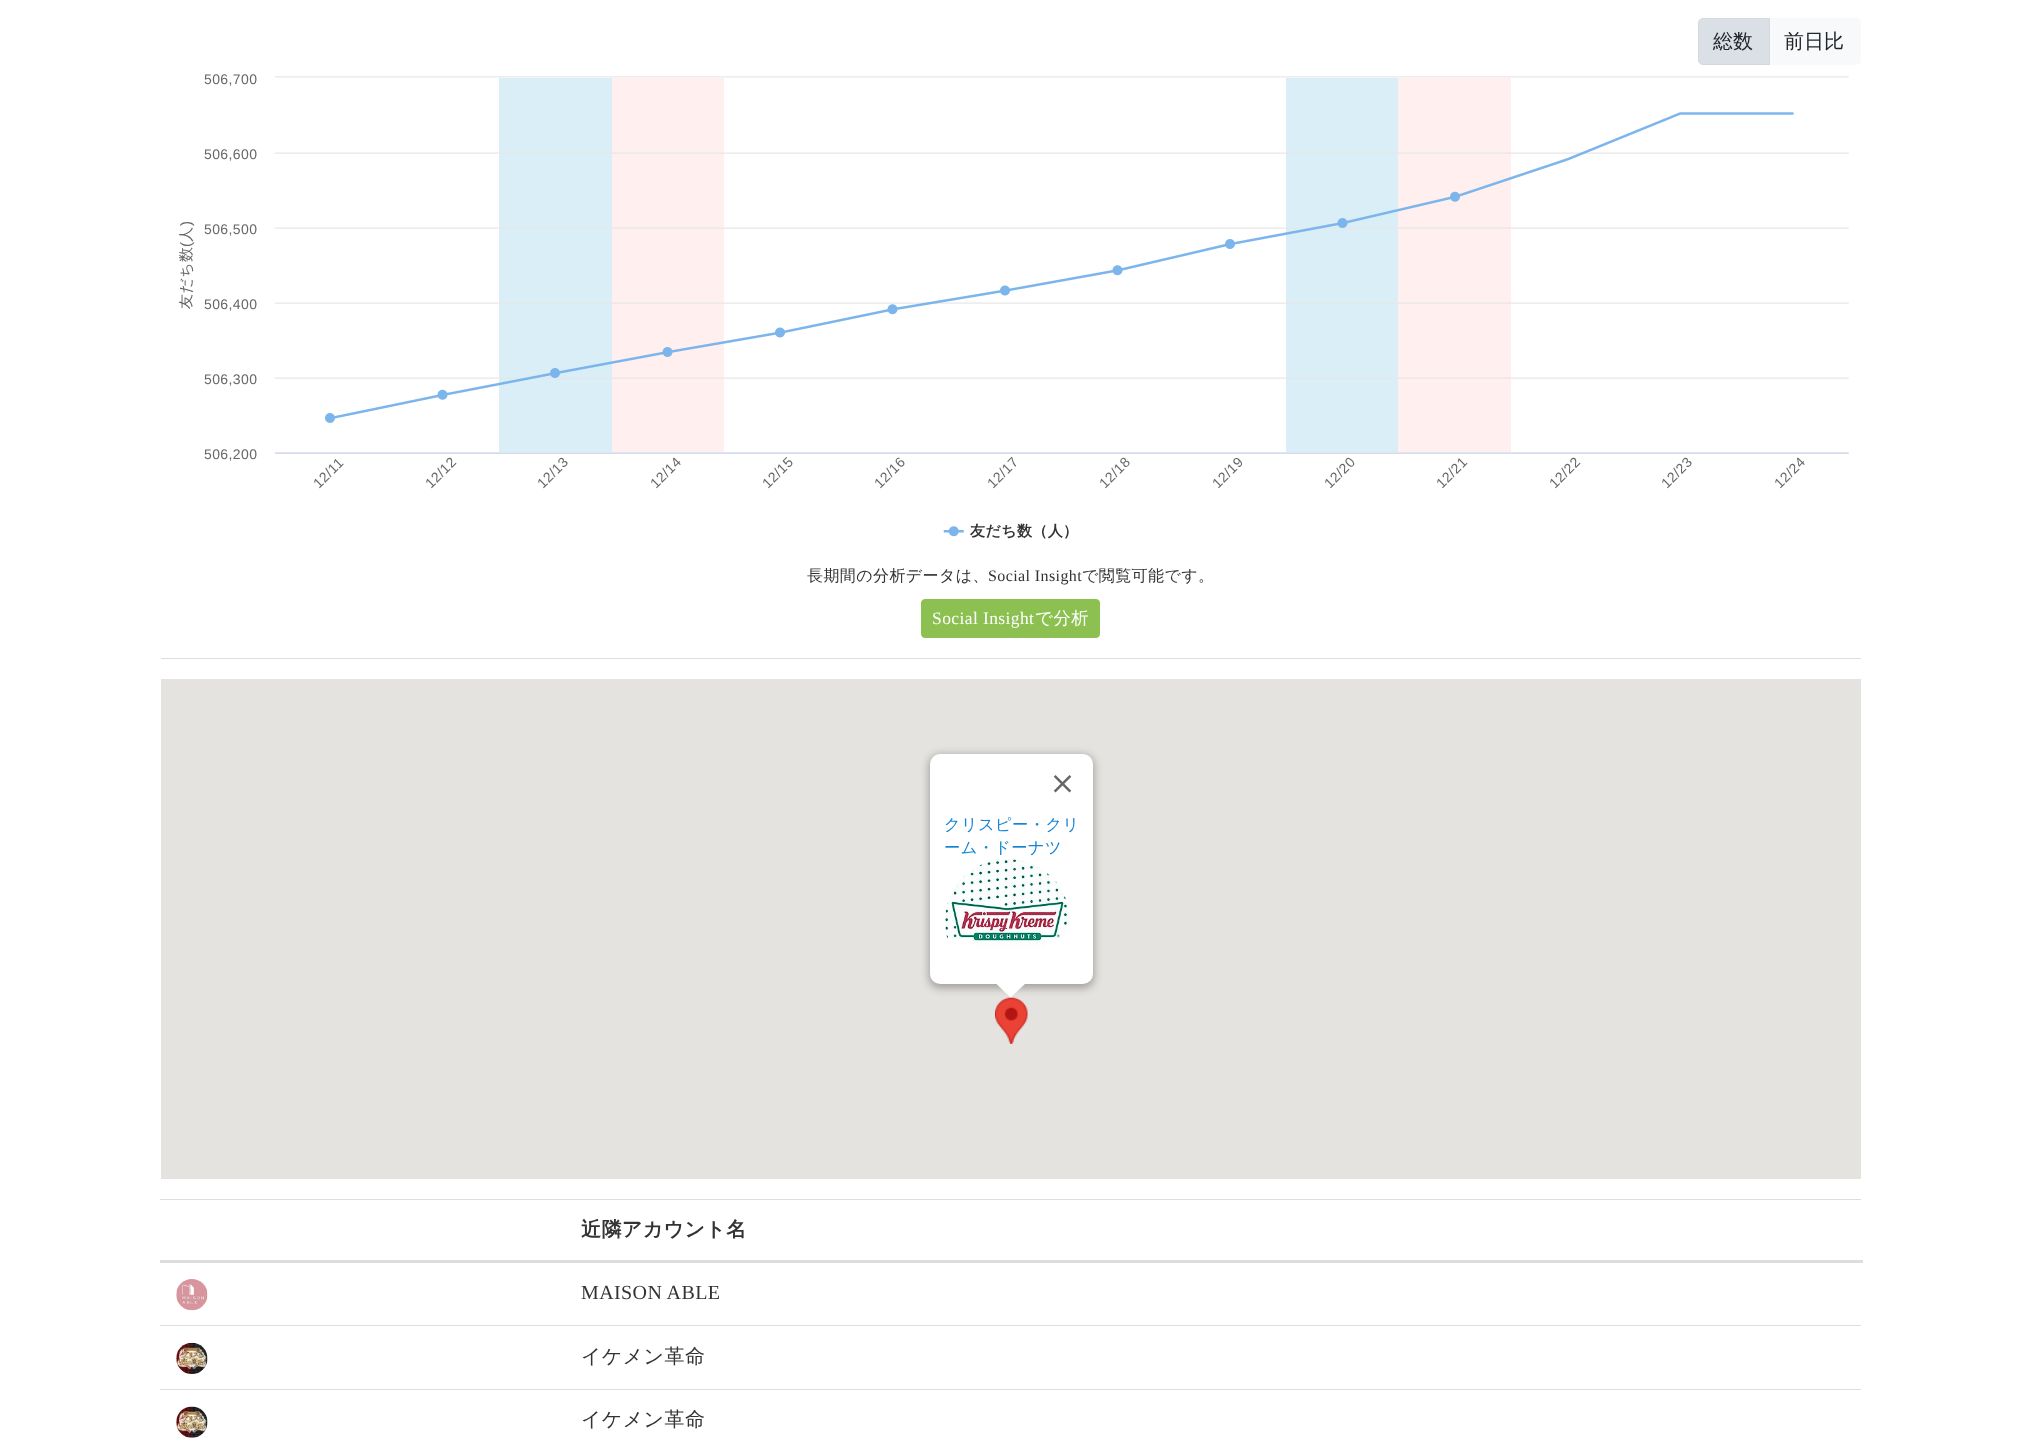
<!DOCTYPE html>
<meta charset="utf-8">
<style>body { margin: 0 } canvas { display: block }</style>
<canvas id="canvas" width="2021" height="1455"></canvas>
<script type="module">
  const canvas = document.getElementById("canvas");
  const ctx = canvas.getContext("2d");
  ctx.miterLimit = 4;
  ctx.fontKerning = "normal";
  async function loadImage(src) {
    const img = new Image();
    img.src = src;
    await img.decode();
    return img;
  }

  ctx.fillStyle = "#ffffff";
  ctx.fillRect(0, 0, 2021, 1455);
  ctx.fillStyle = "#f8f9fa";
  ctx.beginPath();
  ctx.roundRect(1769, 18, 92, 47, [0, 5, 5, 0]);
  ctx.fill();
  ctx.fillStyle = "#dae0e5";
  ctx.beginPath();
  ctx.roundRect(1698.5, 18.5, 71, 46, [4.5, 0, 0, 4.5]);
  ctx.fill();
  ctx.strokeStyle = "#d3d9df";
  ctx.stroke();
  ctx.font = "500 20px WenQuanYi Zen Hei";
  ctx.fillStyle = "#212529";
  ctx.fillText("総数", 1713, 48);
  ctx.fillText("前日比", 1784, 48);
  ctx.letterSpacing = "0.4px";
  ctx.font = "14px Liberation Sans";
  ctx.fillStyle = "#666666";
  ctx.fillText("506,700", 204, 84);
  ctx.drawImage(await loadImage("img1.png"), 275, 76, 1574, 461);
  ctx.fillText("506,600", 204, 159);
  ctx.font = "15px Liberation Sans";
  ctx.save();
  ctx.translate(191, 226);
  ctx.rotate(-90 * Math.PI / 180);
  ctx.fillText(")", 0, 0);
  ctx.restore();
  ctx.font = "500 15px WenQuanYi Zen Hei";
  ctx.save();
  ctx.translate(191, 242);
  ctx.rotate(-90 * Math.PI / 180);
  ctx.fillText("人", 0, 0);
  ctx.restore();
  ctx.font = "14px Liberation Sans";
  ctx.fillText("506,500", 204, 234);
  ctx.font = "15px Liberation Sans";
  ctx.save();
  ctx.translate(191, 247);
  ctx.rotate(-90 * Math.PI / 180);
  ctx.fillText("(", 0, 0);
  ctx.restore();
  ctx.font = "500 15px WenQuanYi Zen Hei";
  ctx.save();
  ctx.translate(191, 309);
  ctx.rotate(-90 * Math.PI / 180);
  ctx.fillText("友だち数", 0, 0);
  ctx.restore();
  ctx.font = "14px Liberation Sans";
  ctx.fillText("506,400", 204, 309);
  ctx.fillText("506,300", 204, 384);
  ctx.fillText("506,200", 204, 459);
  ctx.save();
  ctx.translate(319, 489);
  ctx.rotate(-45 * Math.PI / 180);
  ctx.fillText("12/11", 0, 0);
  ctx.restore();
  ctx.save();
  ctx.translate(431, 489);
  ctx.rotate(-45 * Math.PI / 180);
  ctx.fillText("12/12", 0, 0);
  ctx.restore();
  ctx.save();
  ctx.translate(543, 489);
  ctx.rotate(-45 * Math.PI / 180);
  ctx.fillText("12/13", 0, 0);
  ctx.restore();
  ctx.save();
  ctx.translate(656, 489);
  ctx.rotate(-45 * Math.PI / 180);
  ctx.fillText("12/14", 0, 0);
  ctx.restore();
  ctx.save();
  ctx.translate(768, 489);
  ctx.rotate(-45 * Math.PI / 180);
  ctx.fillText("12/15", 0, 0);
  ctx.restore();
  ctx.save();
  ctx.translate(880, 489);
  ctx.rotate(-45 * Math.PI / 180);
  ctx.fillText("12/16", 0, 0);
  ctx.restore();
  ctx.save();
  ctx.translate(993, 489);
  ctx.rotate(-45 * Math.PI / 180);
  ctx.fillText("12/17", 0, 0);
  ctx.restore();
  ctx.save();
  ctx.translate(1105, 489);
  ctx.rotate(-45 * Math.PI / 180);
  ctx.fillText("12/18", 0, 0);
  ctx.restore();
  ctx.save();
  ctx.translate(1218, 489);
  ctx.rotate(-45 * Math.PI / 180);
  ctx.fillText("12/19", 0, 0);
  ctx.restore();
  ctx.save();
  ctx.translate(1330, 489);
  ctx.rotate(-45 * Math.PI / 180);
  ctx.fillText("12/20", 0, 0);
  ctx.restore();
  ctx.save();
  ctx.translate(1442, 489);
  ctx.rotate(-45 * Math.PI / 180);
  ctx.fillText("12/21", 0, 0);
  ctx.restore();
  ctx.save();
  ctx.translate(1555, 489);
  ctx.rotate(-45 * Math.PI / 180);
  ctx.fillText("12/22", 0, 0);
  ctx.restore();
  ctx.save();
  ctx.translate(1667, 489);
  ctx.rotate(-45 * Math.PI / 180);
  ctx.fillText("12/23", 0, 0);
  ctx.restore();
  ctx.save();
  ctx.translate(1780, 489);
  ctx.rotate(-45 * Math.PI / 180);
  ctx.fillText("12/24", 0, 0);
  ctx.restore();
  ctx.font = "bold 15px WenQuanYi Zen Hei";
  ctx.fillStyle = "#333333";
  ctx.fillText("友だち数（人）", 970, 536);
  ctx.font = "500 16px WenQuanYi Zen Hei";
  ctx.fillText("長期間の分析データは、", 807, 581);
  ctx.font = "16px Liberation Serif";
  ctx.fillText("Social Insight", 988, 581);
  ctx.font = "500 16px WenQuanYi Zen Hei";
  ctx.fillText("で閲覧可能です。", 1082, 581);
  ctx.fillStyle = "#8cc152";
  ctx.beginPath();
  ctx.roundRect(921.5, 599.5, 178, 38, 3.5);
  ctx.fill();
  ctx.strokeStyle = "#8cc152";
  ctx.stroke();
  ctx.font = "17.5px Liberation Serif";
  ctx.fillStyle = "#ffffff";
  ctx.fillText("Social Insight", 932, 624);
  ctx.font = "500 17.5px WenQuanYi Zen Hei";
  ctx.fillText("で分析", 1035, 624);
  ctx.fillStyle = "#dddddd";
  ctx.fillRect(161, 658, 1700, 1);
  ctx.fillStyle = "#e5e3df";
  ctx.fillRect(161, 679, 1700, 500);
  ctx.drawImage(await loadImage("img4.png"), 995, 997, 33, 47);
  ctx.fillStyle = "rgba(0, 0, 0, 0.3)";
  ctx.filter = "blur(4.5px)";
  ctx.beginPath();
  ctx.roundRect(929, 755, 165, 233, 11);
  ctx.fill();
  ctx.filter = "none";
  ctx.fillStyle = "#ffffff";
  ctx.beginPath();
  ctx.roundRect(930, 754, 163, 230, 10);
  ctx.fill();
  ctx.drawImage(await loadImage("img2.png"), 1053, 775, 19, 18);
  ctx.font = "500 16.25px WenQuanYi Zen Hei";
  ctx.fillStyle = "#1384d4";
  ctx.fillText("クリスピー・クリ", 944, 830);
  ctx.fillText("ーム・ドーナツ", 944, 853);
  ctx.drawImage(await loadImage("img3.png"), 945, 859, 125, 90);
  ctx.fillStyle = "#ffffff";
  ctx.beginPath();
  ctx.moveTo(996, 983);
  ctx.lineTo(996, 983.5);
  ctx.lineTo(1010.5, 997.5);
  ctx.lineTo(1026, 983);
  ctx.closePath();
  ctx.fill();
  ctx.fillStyle = "#dddddd";
  ctx.fillRect(160, 1199, 1701, 1);
  ctx.fillRect(160, 1260, 1703, 3);
  ctx.font = "bold 20px WenQuanYi Zen Hei";
  ctx.fillStyle = "#333333";
  ctx.fillText("近隣アカウント名", 581, 1236);
  ctx.drawImage(await loadImage("img5.png"), 176, 1279, 32, 32);
  ctx.font = "20px Liberation Serif";
  ctx.fillText("MAISON ABLE", 581, 1299);
  ctx.drawImage(await loadImage("img6.png"), 176, 1342, 32, 32);
  ctx.fillStyle = "#dddddd";
  ctx.fillRect(160, 1325, 1701, 1);
  ctx.font = "500 20px WenQuanYi Zen Hei";
  ctx.fillStyle = "#333333";
  ctx.fillText("イケメン革命", 581, 1363);
  ctx.drawImage(await loadImage("img7.png"), 176, 1406, 32, 32);
  ctx.fillStyle = "#dddddd";
  ctx.fillRect(160, 1389, 1701, 1);
  ctx.fillStyle = "#333333";
  ctx.fillText("イケメン革命", 581, 1426);
</script>
